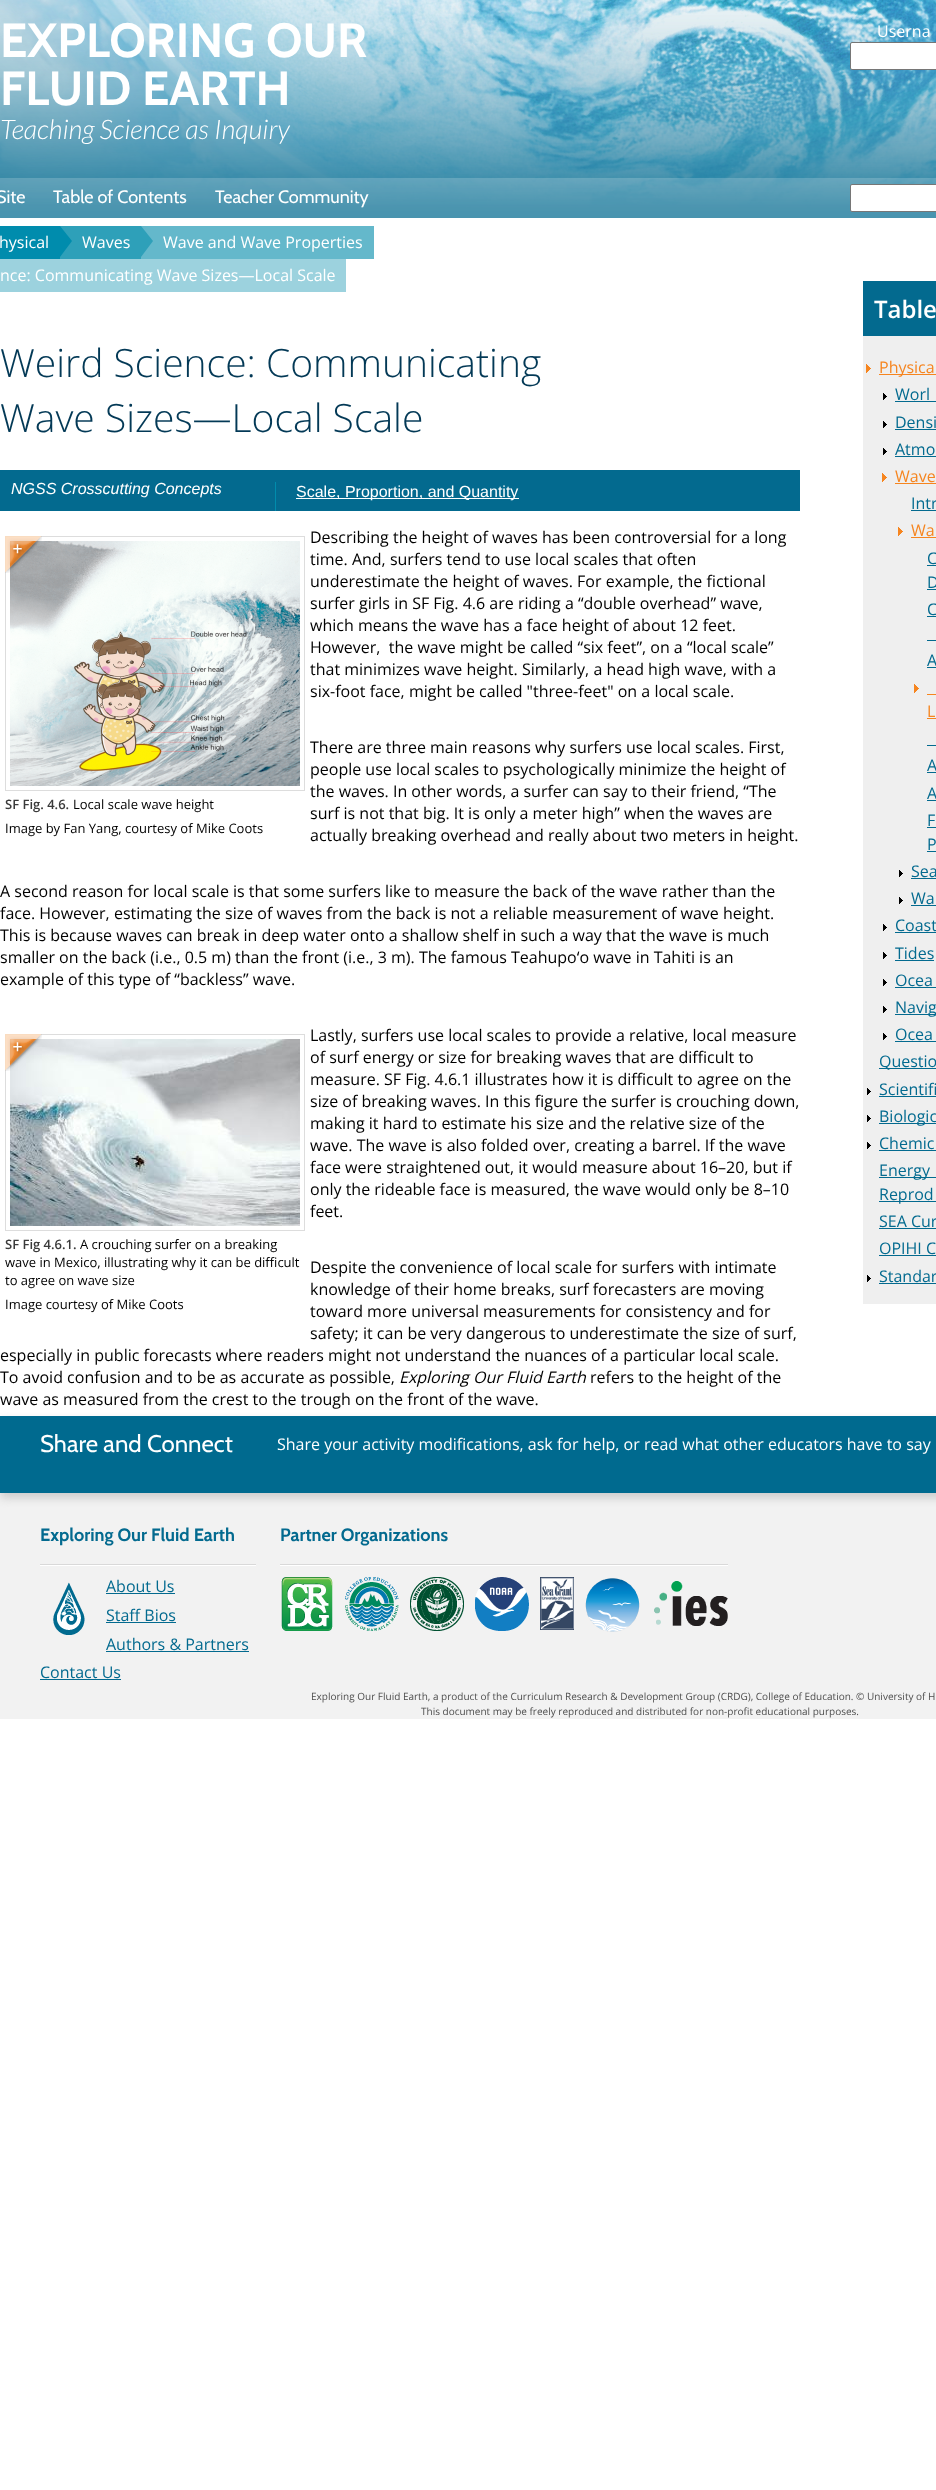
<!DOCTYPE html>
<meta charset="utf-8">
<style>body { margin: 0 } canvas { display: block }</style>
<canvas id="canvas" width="936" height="2490"></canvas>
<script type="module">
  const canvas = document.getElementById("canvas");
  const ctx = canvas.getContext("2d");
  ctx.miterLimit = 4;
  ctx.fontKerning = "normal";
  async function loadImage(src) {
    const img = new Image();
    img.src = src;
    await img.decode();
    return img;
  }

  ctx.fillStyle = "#ffffff";
  ctx.fillRect(0, 0, 936, 2490);
  ctx.drawImage(await loadImage("img1.png"), 0, 0, 936, 218);
  ctx.font = "bold 48px Cabin";
  ctx.fillText("EXPLORING OUR", 0, 57);
  ctx.fillText("FLUID EARTH", 0, 105);
  ctx.font = "italic 300 27px Lato";
  ctx.fillText("Teaching Science as Inquiry", 0, 139);
  ctx.font = "16px Open Sans";
  ctx.fillText("Userna", 877, 37);
  ctx.beginPath();
  ctx.roundRect(850.5, 42.5, 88, 27, 1.5);
  ctx.fill();
  ctx.strokeStyle = "#767676";
  ctx.stroke();
  ctx.font = "18px Cabin";
  ctx.fillText("Site", -4, 203);
  ctx.fillText("Table of Contents", 53, 203);
  ctx.fillText("Teacher Community", 215, 203);
  ctx.beginPath();
  ctx.roundRect(850.5, 184.5, 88, 27, 1.5);
  ctx.fill();
  ctx.stroke();
  ctx.fillStyle = "#008cad";
  ctx.fillRect(0, 226, 60, 33);
  ctx.font = "16px Open Sans";
  ctx.fillStyle = "#ffffff";
  ctx.fillText("hysical", -1, 248);
  ctx.fillStyle = "#2ea0b9";
  ctx.fillRect(60, 226, 81, 33);
  ctx.fillStyle = "#008cad";
  ctx.beginPath();
  ctx.moveTo(60, 257);
  ctx.lineTo(60, 226);
  ctx.lineTo(72, 241);
  ctx.closePath();
  ctx.fill();
  ctx.fillStyle = "#ffffff";
  ctx.fillText("Waves", 82, 248);
  ctx.fillStyle = "#64b8cb";
  ctx.fillRect(141, 226, 233, 33);
  ctx.fillStyle = "#2ea0b9";
  ctx.beginPath();
  ctx.moveTo(141, 257);
  ctx.lineTo(141, 226);
  ctx.lineTo(153, 241);
  ctx.closePath();
  ctx.fill();
  ctx.fillStyle = "#ffffff";
  ctx.fillText("Wave and Wave Properties", 163, 248);
  ctx.fillStyle = "#9cd2de";
  ctx.fillRect(0, 259, 346, 33);
  ctx.fillStyle = "#ffffff";
  ctx.fillText("nce: Communicating Wave Sizes—Local Scale", 0, 281);
  ctx.font = "300 39px Open Sans";
  ctx.fillStyle = "#033956";
  ctx.fillText("Weird Science: Communicating", 0, 377);
  ctx.fillText("Wave Sizes—Local Scale", 0, 432);
  ctx.fillStyle = "#036a8f";
  ctx.fillRect(0, 470, 800, 41);
  ctx.font = "italic 16px Liberation Sans";
  ctx.fillStyle = "#ffffff";
  ctx.fillText("NGSS Crosscutting Concepts", 11, 494);
  ctx.fillStyle = "#008cad";
  ctx.fillRect(275, 482, 1, 29);
  ctx.fillStyle = "#ffffff";
  ctx.fillRect(296, 498, 223, 1);
  ctx.font = "16px Liberation Sans";
  ctx.fillText("Scale, Proportion, and Quantity", 296, 497);
  ctx.font = "16px Open Sans";
  ctx.fillStyle = "#000000";
  ctx.fillText("Describing the height of waves has been controversial for a long", 310, 543);
  ctx.fillText("time. And, surfers tend to use local scales that often", 310, 565);
  ctx.fillText("underestimate the height of waves. For example, the fictional", 310, 587);
  ctx.fillText("surfer girls in SF Fig. 4.6 are riding a “double overhead” wave,", 310, 609);
  ctx.fillText("which means the wave has a face height of about 12 feet.", 310, 631);
  ctx.fillText("However,  the wave might be called “six feet”, on a “local scale”", 310, 653);
  ctx.fillText("that minimizes wave height. Similarly, a head high wave, with a", 310, 675);
  ctx.fillText("six-foot face, might be called \"three-feet\" on a local scale.", 310, 697);
  ctx.strokeStyle = "#dddddd";
  ctx.strokeRect(5.5, 536.5, 299, 254);
  ctx.drawImage(await loadImage("img3.png"), 10, 541, 290, 245);
  ctx.drawImage(await loadImage("img2.png"), 5, 536, 37, 37);
  ctx.font = "600 13px Open Sans";
  ctx.fillStyle = "#3a3a3a";
  ctx.fillText("SF Fig. 4.6.", 5, 809);
  ctx.font = "13px Open Sans";
  ctx.fillStyle = "#000000";
  ctx.fillText("Local scale wave height", 73, 809);
  ctx.fillText("Image by Fan Yang, courtesy of Mike Coots", 5, 833);
  ctx.font = "16px Open Sans";
  ctx.fillText("There are three main reasons why surfers use local scales. First,", 310, 753);
  ctx.fillText("people use local scales to psychologically minimize the height of", 310, 775);
  ctx.fillText("the waves. In other words, a surfer can say to their friend, “The", 310, 797);
  ctx.fillText("surf is not that big. It is only a meter high” when the waves are", 310, 819);
  ctx.fillText("actually breaking overhead and really about two meters in height.", 310, 841);
  ctx.fillText("A second reason for local scale is that some surfers like to measure the back of the wave rather than the", 0, 897);
  ctx.fillText("face. However, estimating the size of waves from the back is not a reliable measurement of wave height.", 0, 919);
  ctx.fillText("This is because waves can break in deep water onto a shallow shelf in such a way that the wave is much", 0, 941);
  ctx.fillText("smaller on the back (i.e., 0.5 m) than the front (i.e., 3 m). The famous Teahupo‘o wave in Tahiti is an", 0, 963);
  ctx.fillText("example of this type of “backless” wave.", 0, 985);
  ctx.fillText("Lastly, surfers use local scales to provide a relative, local measure", 310, 1041);
  ctx.fillText("of surf energy or size for breaking waves that are difficult to", 310, 1063);
  ctx.fillText("measure. SF Fig. 4.6.1 illustrates how it is difficult to agree on the", 310, 1085);
  ctx.fillText("size of breaking waves. In this figure the surfer is crouching down,", 310, 1107);
  ctx.fillText("making it hard to estimate his size and the relative size of the", 310, 1129);
  ctx.fillText("wave. The wave is also folded over, creating a barrel. If the wave", 310, 1151);
  ctx.fillText("face were straightened out, it would measure about 16–20, but if", 310, 1173);
  ctx.fillText("only the rideable face is measured, the wave would only be 8–10", 310, 1195);
  ctx.fillText("feet.", 310, 1217);
  ctx.strokeRect(5.5, 1034.5, 299, 196);
  ctx.drawImage(await loadImage("img5.png"), 10, 1039, 290, 187);
  ctx.drawImage(await loadImage("img4.png"), 5, 1034, 37, 37);
  ctx.font = "600 13px Open Sans";
  ctx.fillStyle = "#3a3a3a";
  ctx.fillText("SF Fig 4.6.1.", 5, 1249);
  ctx.font = "13px Open Sans";
  ctx.fillStyle = "#000000";
  ctx.fillText("A crouching surfer on a breaking", 80, 1249);
  ctx.fillText("wave in Mexico, illustrating why it can be difficult", 5, 1267);
  ctx.fillText("to agree on wave size", 5, 1285);
  ctx.fillText("Image courtesy of Mike Coots", 5, 1309);
  ctx.font = "16px Open Sans";
  ctx.fillText("Despite the convenience of local scale for surfers with intimate", 310, 1273);
  ctx.fillText("knowledge of their home breaks, surf forecasters are moving", 310, 1295);
  ctx.fillText("toward more universal measurements for consistency and for", 310, 1317);
  ctx.fillText("safety; it can be very dangerous to underestimate the size of surf,", 310, 1339);
  ctx.fillText("especially in public forecasts where readers might not understand the nuances of a particular local scale.", 0, 1361);
  ctx.fillText("To avoid confusion and to be as accurate as possible,", 0, 1383);
  ctx.font = "italic 16px Open Sans";
  ctx.fillText("Exploring Our Fluid Earth", 399, 1383);
  ctx.font = "16px Open Sans";
  ctx.fillText("refers to the height of the", 590, 1383);
  ctx.fillStyle = "#f2f2f2";
  ctx.fillRect(0, 1493, 936, 226);
  ctx.fillStyle = "#cccccc";
  ctx.filter = "blur(5px)";
  ctx.beginPath();
  ctx.rect(0, 1421, 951, 77);
  ctx.fill();
  ctx.filter = "none";
  ctx.fillStyle = "#000000";
  ctx.fillText("wave as measured from the crest to the trough on the front of the wave.", 0, 1405);
  ctx.fillStyle = "#efefef";
  ctx.fillRect(863, 336, 73, 968);
  ctx.fillStyle = "#036a8f";
  ctx.fillRect(863, 281, 73, 55);
  ctx.font = "600 24px Open Sans";
  ctx.fillStyle = "#ffffff";
  ctx.fillText("Table", 874, 318);
  ctx.drawImage(await loadImage("img6.png"), 866, 364, 5, 9);
  ctx.fillStyle = "#f6851f";
  ctx.fillRect(879, 374, 57, 1);
  ctx.font = "16px Open Sans";
  ctx.fillText("Physica", 879, 373);
  ctx.drawImage(await loadImage("img7.png"), 883, 393, 4, 7);
  ctx.fillStyle = "#036a8f";
  ctx.fillText("Worl", 895, 400);
  ctx.fillRect(895, 401, 41, 1);
  ctx.drawImage(await loadImage("img7.png"), 883, 421, 4, 7);
  ctx.fillText("Densi", 895, 428);
  ctx.fillRect(895, 429, 41, 1);
  ctx.drawImage(await loadImage("img7.png"), 883, 448, 4, 7);
  ctx.fillText("Atmo", 895, 455);
  ctx.fillRect(895, 456, 41, 1);
  ctx.drawImage(await loadImage("img6.png"), 882, 473, 5, 9);
  ctx.fillStyle = "#f6851f";
  ctx.fillText("Wave", 895, 482);
  ctx.fillRect(895, 483, 41, 1);
  ctx.fillStyle = "#036a8f";
  ctx.fillText("Intr", 911, 509);
  ctx.fillRect(911, 510, 25, 1);
  ctx.drawImage(await loadImage("img6.png"), 898, 527, 5, 9);
  ctx.fillStyle = "#f6851f";
  ctx.fillText("Wa", 911, 536);
  ctx.fillRect(911, 537, 25, 1);
  ctx.fillStyle = "#036a8f";
  ctx.fillText("C", 927, 564);
  ctx.fillRect(927, 565, 9, 1);
  ctx.fillText("D", 927, 588);
  ctx.fillRect(927, 589, 9, 1);
  ctx.fillText("C", 927, 615);
  ctx.fillRect(927, 616, 9, 1);
  ctx.fillRect(927, 640, 9, 1);
  ctx.fillText("A", 927, 666);
  ctx.fillRect(927, 667, 9, 1);
  ctx.drawImage(await loadImage("img6.png"), 914, 684, 5, 9);
  ctx.fillStyle = "#f6851f";
  ctx.fillText("L", 927, 717);
  ctx.fillRect(927, 694, 9, 1);
  ctx.fillRect(927, 718, 9, 1);
  ctx.fillStyle = "#036a8f";
  ctx.fillRect(927, 745, 9, 1);
  ctx.fillText("A", 927, 771);
  ctx.fillRect(927, 772, 9, 1);
  ctx.fillText("A", 927, 799);
  ctx.fillRect(927, 800, 9, 1);
  ctx.fillText("F", 927, 826);
  ctx.fillRect(927, 827, 9, 1);
  ctx.fillText("P", 927, 850);
  ctx.fillRect(927, 851, 9, 1);
  ctx.drawImage(await loadImage("img7.png"), 899, 870, 4, 7);
  ctx.fillText("Sea", 911, 877);
  ctx.fillRect(911, 878, 25, 1);
  ctx.drawImage(await loadImage("img7.png"), 899, 897, 4, 7);
  ctx.fillText("Wa", 911, 904);
  ctx.fillRect(911, 905, 25, 1);
  ctx.drawImage(await loadImage("img7.png"), 883, 924, 4, 7);
  ctx.fillText("Coast", 895, 931);
  ctx.fillRect(895, 932, 41, 1);
  ctx.drawImage(await loadImage("img7.png"), 883, 952, 4, 7);
  ctx.fillText("Tides", 895, 959);
  ctx.fillRect(895, 960, 39, 1);
  ctx.drawImage(await loadImage("img7.png"), 883, 979, 4, 7);
  ctx.fillText("Ocea", 895, 986);
  ctx.fillRect(895, 987, 41, 1);
  ctx.drawImage(await loadImage("img7.png"), 883, 1006, 4, 7);
  ctx.fillRect(895, 1014, 41, 1);
  ctx.fillText("Navig", 895, 1013);
  ctx.drawImage(await loadImage("img7.png"), 883, 1033, 4, 7);
  ctx.fillText("Ocea", 895, 1040);
  ctx.fillRect(895, 1041, 41, 1);
  ctx.fillRect(879, 1068, 57, 1);
  ctx.fillText("Questio", 879, 1067);
  ctx.drawImage(await loadImage("img7.png"), 867, 1088, 4, 7);
  ctx.fillText("Scientifi", 879, 1095);
  ctx.fillRect(879, 1096, 57, 1);
  ctx.drawImage(await loadImage("img7.png"), 867, 1115, 4, 7);
  ctx.fillRect(879, 1123, 57, 1);
  ctx.fillText("Biologic", 879, 1122);
  ctx.drawImage(await loadImage("img7.png"), 867, 1142, 4, 7);
  ctx.fillText("Chemic", 879, 1149);
  ctx.fillRect(879, 1150, 57, 1);
  ctx.fillRect(879, 1177, 57, 1);
  ctx.fillText("Energy", 879, 1176);
  ctx.fillRect(879, 1201, 57, 1);
  ctx.fillText("Reprod", 879, 1200);
  ctx.fillText("SEA Cur", 879, 1227);
  ctx.fillRect(879, 1228, 57, 1);
  ctx.fillText("OPIHI C", 879, 1254);
  ctx.fillRect(879, 1255, 57, 1);
  ctx.drawImage(await loadImage("img7.png"), 867, 1275, 4, 7);
  ctx.fillText("Standar", 879, 1282);
  ctx.fillRect(879, 1283, 57, 1);
  ctx.fillStyle = "#006a8f";
  ctx.fillRect(0, 1416, 936, 77);
  ctx.font = "24px Cabin";
  ctx.fillStyle = "#ffffff";
  ctx.fillText("Share and Connect", 40, 1452);
  ctx.font = "16px Open Sans";
  ctx.fillText("Share your activity modifications, ask for help, or read what other educators have to say", 277, 1450);
  ctx.font = "bold 18px Cabin";
  ctx.fillStyle = "#036a8f";
  ctx.fillText("Exploring Our Fluid Earth", 40, 1541);
  ctx.fillStyle = "#d9d9d9";
  ctx.fillRect(40, 1564, 216, 1);
  ctx.fillStyle = "#ffffff";
  ctx.fillRect(40, 1565, 216, 1);
  ctx.drawImage(await loadImage("img8.png"), 53, 1582, 32, 53);
  ctx.font = "16px Open Sans";
  ctx.fillStyle = "#036a8f";
  ctx.fillText("About Us", 106, 1592);
  ctx.fillRect(106, 1593, 69, 1);
  ctx.fillText("Staff Bios", 106, 1621);
  ctx.fillRect(106, 1622, 70, 1);
  ctx.fillText("Authors & Partners", 106, 1650);
  ctx.fillRect(106, 1651, 143, 1);
  ctx.fillText("Contact Us", 40, 1678);
  ctx.fillRect(40, 1679, 81, 1);
  ctx.font = "bold 18px Cabin";
  ctx.fillText("Partner Organizations", 280, 1541);
  ctx.fillStyle = "#d9d9d9";
  ctx.fillRect(280, 1564, 448, 1);
  ctx.fillStyle = "#ffffff";
  ctx.fillRect(280, 1565, 448, 1);
  ctx.drawImage(await loadImage("img9.png"), 281, 1577, 52, 54);
  ctx.drawImage(await loadImage("img10.png"), 345, 1577, 54, 54);
  ctx.drawImage(await loadImage("img11.png"), 410, 1577, 54, 54);
  ctx.drawImage(await loadImage("img12.png"), 475, 1577, 54, 54);
  ctx.drawImage(await loadImage("img13.png"), 540, 1577, 34, 53);
  ctx.drawImage(await loadImage("img14.png"), 585, 1578, 55, 54);
  ctx.drawImage(await loadImage("img15.png"), 654, 1581, 74, 45);
  ctx.font = "10px Open Sans";
  ctx.fillStyle = "#4d4d4d";
  ctx.fillText("Exploring Our Fluid Earth, a product of the Curriculum Research & Development Group (CRDG), College of Education. © University of H", 311, 1700);
  ctx.fillText("This document may be freely reproduced and distributed for non-profit educational purposes.", 421, 1715);
</script>
